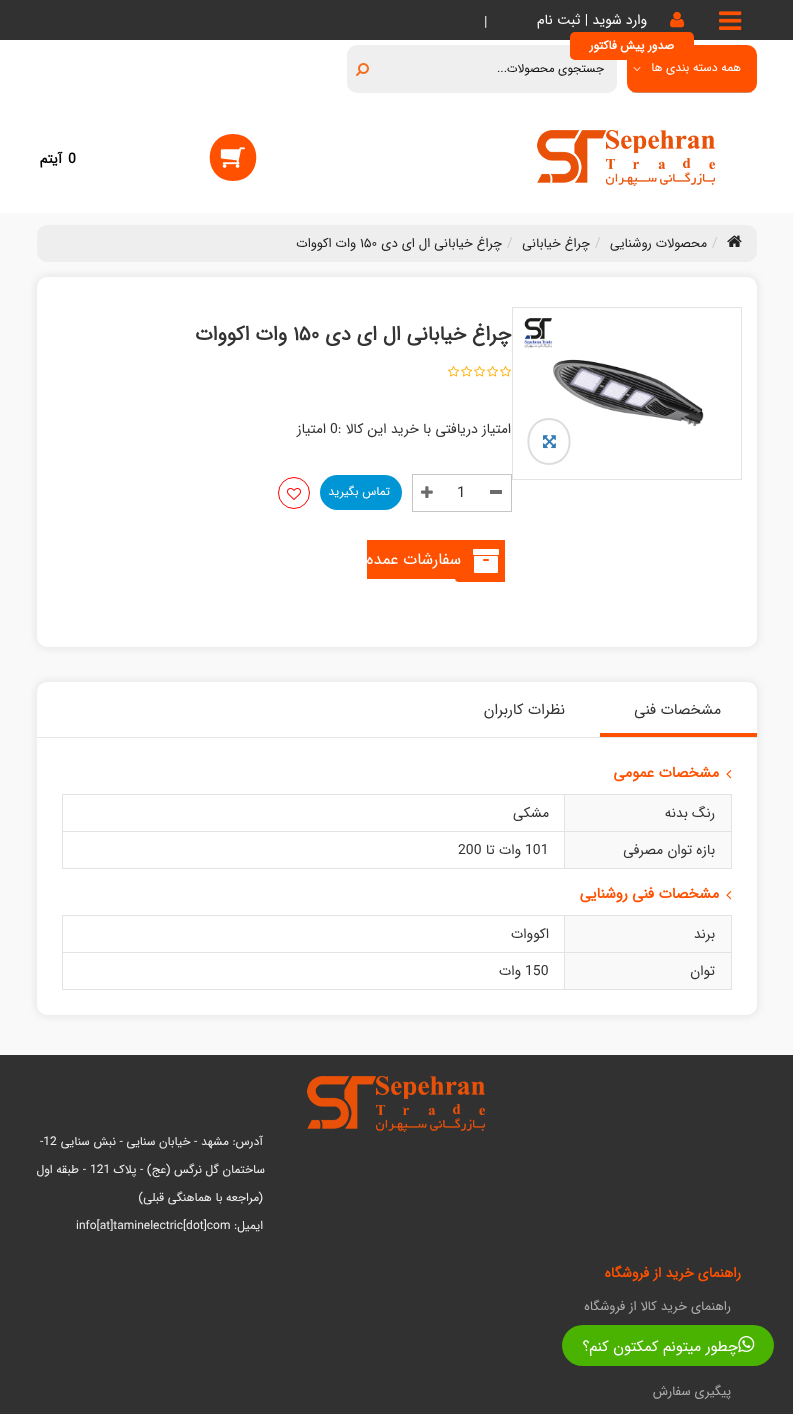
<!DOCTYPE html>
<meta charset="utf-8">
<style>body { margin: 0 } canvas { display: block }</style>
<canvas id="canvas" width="793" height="1414"></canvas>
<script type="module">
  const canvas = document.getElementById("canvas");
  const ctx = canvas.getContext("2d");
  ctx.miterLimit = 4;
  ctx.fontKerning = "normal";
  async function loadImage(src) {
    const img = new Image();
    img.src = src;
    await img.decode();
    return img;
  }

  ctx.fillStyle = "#f9f9f9";
  ctx.fillRect(0, 0, 793, 1414);
  ctx.fillStyle = "#313131";
  ctx.fillRect(0, 0, 793, 40);
  ctx.drawImage(await loadImage("img1.png"), 719, 11, 23, 19);
  ctx.drawImage(await loadImage("img2.png"), 670, 11, 15, 17);
  ctx.direction = "rtl";
  ctx.font = "14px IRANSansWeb";
  ctx.fillStyle = "#ffffff";
  ctx.fillText("وارد شوید | ثبت نام", 647, 24);
  ctx.direction = "ltr";
  ctx.fillStyle = "#eeeeee";
  ctx.fillText("|", 484, 26);
  ctx.fillStyle = "#ffffff";
  ctx.fillRect(0, 40, 793, 173);
  ctx.fillStyle = "#ff5100";
  ctx.beginPath();
  ctx.roundRect(627, 45, 130, 48, 10);
  ctx.fill();
  ctx.fillStyle = "#efefef";
  ctx.beginPath();
  ctx.roundRect(347, 45, 270, 48, 10);
  ctx.fill();
  ctx.beginPath();
  ctx.roundRect(380, 45, 237, 48, [0, 10, 10, 0]);
  ctx.fill();
  ctx.fillStyle = "#ff5100";
  ctx.beginPath();
  ctx.roundRect(570, 32, 124, 28, 5);
  ctx.fill();
  ctx.direction = "rtl";
  ctx.font = "bold 12px IRANSansWeb";
  ctx.fillStyle = "#ffffff";
  ctx.fillText("صدور پیش فاکتور", 674, 49);
  ctx.fillStyle = "rgba(178, 175, 168, 0.58)";
  ctx.fillRect(632, 92, 120, 1);
  ctx.font = "12px IRANSansWeb";
  ctx.fillStyle = "#ffffff";
  ctx.fillText("همه دسته بندی ها", 741, 71);
  ctx.beginPath();
  ctx.moveTo(640.5, 67.5);
  ctx.lineTo(637, 71);
  ctx.lineTo(636.5, 70.5);
  ctx.lineTo(640, 67);
  ctx.closePath();
  ctx.fill();
  ctx.beginPath();
  ctx.moveTo(637.5, 70.5);
  ctx.lineTo(637, 71);
  ctx.lineTo(633.5, 67.5);
  ctx.lineTo(634, 67);
  ctx.closePath();
  ctx.fill();
  ctx.fillStyle = "#111111";
  ctx.fillText("جستجوی محصولات...", 604, 72);
  ctx.drawImage(await loadImage("img3.png"), 356, 63, 13, 13);
  ctx.drawImage(await loadImage("img4.png"), 537, 130, 178, 56);
  ctx.fillStyle = "#ff5100";
  ctx.beginPath();
  ctx.moveTo(233, 134);
  ctx.bezierCurveTo(202, 134, 202, 181, 233, 181);
  ctx.bezierCurveTo(264, 181, 264, 134, 233, 134);
  ctx.closePath();
  ctx.fill();
  ctx.drawImage(await loadImage("img5.png"), 220, 147, 25, 21);
  ctx.direction = "ltr";
  ctx.font = "bold 14px IRANSansWeb";
  ctx.fillStyle = "#000000";
  ctx.fillText("0", 68, 163);
  ctx.direction = "rtl";
  ctx.fillText("آیتم", 62, 163);
  ctx.fillStyle = "#eeeeee";
  ctx.beginPath();
  ctx.roundRect(37, 225, 720, 37, 10);
  ctx.fill();
  ctx.drawImage(await loadImage("img6.png"), 727, 235, 15, 12);
  ctx.direction = "ltr";
  ctx.font = "14px IRANSansWeb";
  ctx.fillStyle = "#cccccc";
  ctx.fillText("/", 712, 247);
  ctx.direction = "rtl";
  ctx.font = "13px IRANSansWeb";
  ctx.fillStyle = "#222222";
  ctx.fillText("محصولات روشنایی", 707, 247);
  ctx.direction = "ltr";
  ctx.font = "14px IRANSansWeb";
  ctx.fillStyle = "#cccccc";
  ctx.fillText("/", 595, 247);
  ctx.direction = "rtl";
  ctx.font = "13px IRANSansWeb";
  ctx.fillStyle = "#222222";
  ctx.fillText("چراغ خیابانی", 590, 247);
  ctx.direction = "ltr";
  ctx.font = "14px IRANSansWeb";
  ctx.fillStyle = "#cccccc";
  ctx.fillText("/", 507, 247);
  ctx.direction = "rtl";
  ctx.font = "13px IRANSansWeb";
  ctx.fillStyle = "#222222";
  ctx.fillText("چراغ خیابانی ال ای دی", 502, 247);
  ctx.direction = "ltr";
  ctx.fillText("۱۵۰", 360, 247);
  ctx.direction = "rtl";
  ctx.fillText("وات اکووات", 356, 247);
  ctx.fillStyle = "rgba(180, 180, 180, 0.28)";
  ctx.filter = "blur(4px)";
  ctx.beginPath();
  ctx.roundRect(36, 276, 722, 372, 11);
  ctx.fill();
  ctx.filter = "none";
  ctx.fillStyle = "#ffffff";
  ctx.beginPath();
  ctx.roundRect(37, 277, 720, 370, 10);
  ctx.fill();
  ctx.strokeStyle = "#e3e3e3";
  ctx.strokeRect(512.5, 307.5, 229, 172);
  ctx.drawImage(await loadImage("img7.png"), 524, 318, 180, 109);
  ctx.beginPath();
  ctx.moveTo(549, 419);
  ctx.bezierCurveTo(576.5, 419, 576.5, 464, 549, 464);
  ctx.bezierCurveTo(521.5, 464, 521.5, 419, 549, 419);
  ctx.closePath();
  ctx.strokeStyle = "#dddddd";
  ctx.lineWidth = 2;
  ctx.stroke();
  ctx.drawImage(await loadImage("img8.png"), 543, 435, 13, 14);
  ctx.font = "bold 20px IRANSansWeb";
  ctx.fillStyle = "#333333";
  ctx.fillText("چراغ خیابانی ال ای دی", 511, 340);
  ctx.direction = "ltr";
  ctx.fillText("۱۵۰", 293, 340);
  ctx.direction = "rtl";
  ctx.fillText("وات اکووات", 287, 340);
  ctx.drawImage(await loadImage("img9.png"), 500, 366, 12, 11);
  ctx.drawImage(await loadImage("img9.png"), 487, 366, 12, 11);
  ctx.drawImage(await loadImage("img9.png"), 474, 366, 12, 11);
  ctx.drawImage(await loadImage("img9.png"), 461, 366, 12, 11);
  ctx.drawImage(await loadImage("img9.png"), 448, 366, 12, 11);
  ctx.font = "14px IRANSansWeb";
  ctx.fillText("امتیاز دریافتی با خرید این کالا :", 511, 433);
  ctx.direction = "ltr";
  ctx.fillText("0", 330, 433);
  ctx.direction = "rtl";
  ctx.fillText("امتیاز", 326, 433);
  ctx.strokeStyle = "#c5c5c5";
  ctx.lineWidth = 1;
  ctx.strokeRect(412.5, 474.5, 99, 37);
  ctx.fillStyle = "#6c6c6c";
  ctx.fillRect(490, 490, 12, 4);
  ctx.direction = "ltr";
  ctx.font = "15px IRANSansWeb";
  ctx.fillStyle = "#333333";
  ctx.fillText("1", 457, 497);
  ctx.drawImage(await loadImage("img10.png"), 421, 486, 12, 12);
  ctx.fillStyle = "#0096d5";
  ctx.beginPath();
  ctx.roundRect(320, 475, 82, 35, 17.5);
  ctx.fill();
  ctx.direction = "rtl";
  ctx.font = "12px IRANSansWeb";
  ctx.fillStyle = "#ffffff";
  ctx.fillText("تماس بگیرید", 390, 495);
  ctx.beginPath();
  ctx.arc(294, 493, 15.5, 0, Math.PI * 2);
  ctx.strokeStyle = "#ff0000";
  ctx.stroke();
  ctx.drawImage(await loadImage("img11.png"), 287, 488, 14, 12);
  ctx.fillStyle = "#ff5100";
  ctx.beginPath();
  ctx.roundRect(455, 540, 50, 42, [4, 0, 0, 4]);
  ctx.fill();
  ctx.beginPath();
  ctx.roundRect(367, 540, 102, 39, [0, 4, 4, 0]);
  ctx.fill();
  ctx.drawImage(await loadImage("img12.png"), 473, 549, 26, 24);
  ctx.font = "16px IRANSansWeb";
  ctx.fillStyle = "#ffffff";
  ctx.fillText("سفارشات عمده", 461, 564);
  ctx.fillStyle = "rgba(180, 180, 180, 0.28)";
  ctx.filter = "blur(4px)";
  ctx.beginPath();
  ctx.roundRect(36, 681, 722, 335, 11);
  ctx.fill();
  ctx.filter = "none";
  ctx.fillStyle = "#ffffff";
  ctx.beginPath();
  ctx.roundRect(37, 682, 720, 55, [10, 10, 0, 0]);
  ctx.fill();
  ctx.beginPath();
  ctx.roundRect(600, 682, 157, 55, [0, 10, 0, 0]);
  ctx.fill();
  ctx.font = "15px IRANSansWeb";
  ctx.fillStyle = "#333333";
  ctx.fillText("مشخصات فنی", 721, 714);
  ctx.fillStyle = "#ff5100";
  ctx.fillRect(600, 733, 157, 4);
  ctx.fillStyle = "#333333";
  ctx.fillText("نظرات کاربران", 565, 714);
  ctx.fillStyle = "#ffffff";
  ctx.beginPath();
  ctx.roundRect(37, 737, 720, 278, [0, 0, 10, 10]);
  ctx.fill();
  ctx.fillStyle = "#e6e6e6";
  ctx.fillRect(37, 737, 720, 1);
  ctx.fillStyle = "#e3e3e3";
  ctx.fillRect(62, 794, 670, 1);
  ctx.drawImage(await loadImage("img13.png"), 726, 770, 6, 9);
  ctx.font = "bold 15px IRANSansWeb";
  ctx.fillStyle = "#ff5100";
  ctx.fillText("مشخصات عمومی", 719, 777);
  ctx.fillStyle = "#f9f9f9";
  ctx.fillRect(565, 795, 166, 36);
  ctx.fillStyle = "#e3e3e3";
  ctx.fillRect(731, 795, 1, 74);
  ctx.fillRect(62, 831, 670, 1);
  ctx.fillRect(564, 795, 1, 37);
  ctx.font = "14px IRANSansWeb";
  ctx.fillStyle = "#333333";
  ctx.fillText("رنگ بدنه", 715, 817);
  ctx.fillStyle = "#e3e3e3";
  ctx.fillRect(62, 795, 1, 37);
  ctx.fillStyle = "#333333";
  ctx.fillText("مشکی", 549, 817);
  ctx.fillStyle = "#f9f9f9";
  ctx.fillRect(565, 832, 166, 36);
  ctx.fillStyle = "#e3e3e3";
  ctx.fillRect(62, 868, 670, 1);
  ctx.fillRect(564, 832, 1, 37);
  ctx.fillStyle = "#333333";
  ctx.fillText("بازه توان مصرفی", 715, 854);
  ctx.fillStyle = "#e3e3e3";
  ctx.fillRect(62, 832, 1, 37);
  ctx.direction = "ltr";
  ctx.fillStyle = "#333333";
  ctx.fillText("101", 525, 854);
  ctx.direction = "rtl";
  ctx.fillText("وات تا", 521, 854);
  ctx.direction = "ltr";
  ctx.fillText("200", 458, 854);
  ctx.fillStyle = "#e3e3e3";
  ctx.fillRect(62, 915, 670, 1);
  ctx.drawImage(await loadImage("img13.png"), 726, 891, 6, 9);
  ctx.direction = "rtl";
  ctx.font = "bold 15px IRANSansWeb";
  ctx.fillStyle = "#ff5100";
  ctx.fillText("مشخصات فنی روشنایی", 719, 898);
  ctx.fillStyle = "#f9f9f9";
  ctx.fillRect(565, 916, 166, 36);
  ctx.fillStyle = "#e3e3e3";
  ctx.fillRect(731, 916, 1, 74);
  ctx.fillRect(62, 952, 670, 1);
  ctx.fillRect(564, 916, 1, 37);
  ctx.font = "14px IRANSansWeb";
  ctx.fillStyle = "#333333";
  ctx.fillText("برند", 715, 938);
  ctx.fillStyle = "#e3e3e3";
  ctx.fillRect(62, 916, 1, 37);
  ctx.fillStyle = "#333333";
  ctx.fillText("اکووات", 549, 938);
  ctx.fillStyle = "#f9f9f9";
  ctx.fillRect(565, 953, 166, 36);
  ctx.fillStyle = "#e3e3e3";
  ctx.fillRect(62, 989, 670, 1);
  ctx.fillRect(564, 953, 1, 37);
  ctx.fillStyle = "#333333";
  ctx.fillText("توان", 715, 975);
  ctx.fillStyle = "#e3e3e3";
  ctx.fillRect(62, 953, 1, 37);
  ctx.direction = "ltr";
  ctx.fillStyle = "#333333";
  ctx.fillText("150", 525, 975);
  ctx.direction = "rtl";
  ctx.fillText("وات", 521, 975);
  ctx.fillStyle = "#313131";
  ctx.fillRect(0, 1055, 793, 359);
  ctx.drawImage(await loadImage("img14.png"), 307, 1076, 178, 56);
  ctx.font = "12px IRANSansWeb";
  ctx.fillStyle = "#eeeeee";
  ctx.fillText("آدرس: مشهد - خیابان سنایی - نبش سنایی", 263, 1145);
  ctx.direction = "ltr";
  ctx.fillText("-12", 40, 1145);
  ctx.direction = "rtl";
  ctx.fillText("ساختمان گل نرگس (عج) - پلاک", 265, 1173);
  ctx.direction = "ltr";
  ctx.fillText("121", 90, 1173);
  ctx.direction = "rtl";
  ctx.fillText("- طبقه اول", 86, 1173);
  ctx.fillText("(مراجعه با هماهنگی قبلی)", 263, 1201);
  ctx.fillText("ایمیل:", 263, 1229);
  ctx.direction = "ltr";
  ctx.fillText("info[at]taminelectric[dot]com", 76, 1229);
  ctx.fillStyle = "#4ab200";
  ctx.beginPath();
  ctx.roundRect(562, 1325, 212, 41, 20.5);
  ctx.fill();
  ctx.drawImage(await loadImage("img15.png"), 738, 1336, 17, 17);
  ctx.direction = "rtl";
  ctx.font = "15px IRANSansWeb";
  ctx.fillStyle = "#ffffff";
  ctx.fillText("چطور میتونم کمکتون کنم؟", 738, 1351);
  ctx.font = "bold 14px IRANSansWeb";
  ctx.fillStyle = "#ff5100";
  ctx.fillText("راهنمای خرید از فروشگاه", 741, 1277);
  ctx.font = "13px IRANSansWeb";
  ctx.fillStyle = "#adadad";
  ctx.fillText("راهنمای خرید کالا از فروشگاه", 731, 1310);
  ctx.fillText("پیگیری سفارش", 731, 1395);
</script>
